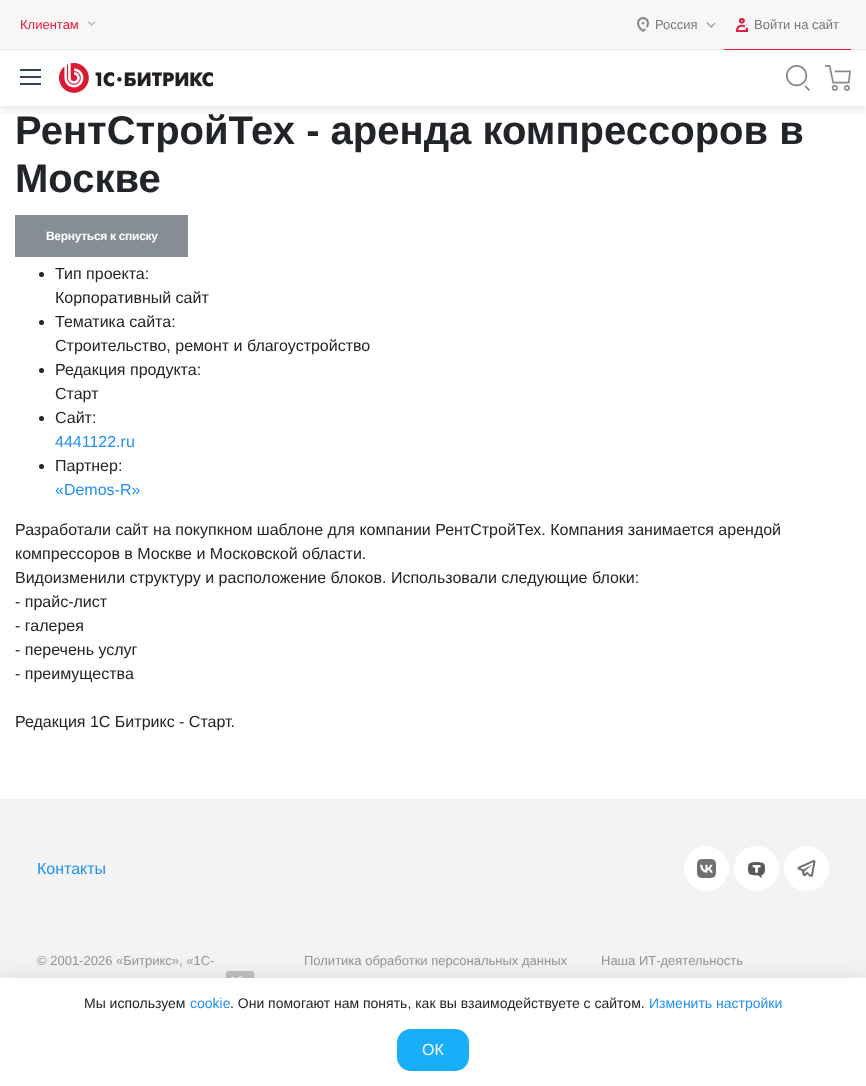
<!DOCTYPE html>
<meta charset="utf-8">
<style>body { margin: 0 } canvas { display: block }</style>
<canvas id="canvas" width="866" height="1086"></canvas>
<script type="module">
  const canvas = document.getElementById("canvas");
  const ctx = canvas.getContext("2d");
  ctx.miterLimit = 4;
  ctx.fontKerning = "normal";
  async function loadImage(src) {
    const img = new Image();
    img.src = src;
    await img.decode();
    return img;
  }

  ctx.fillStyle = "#ffffff";
  ctx.fillRect(0, 0, 866, 1086);
  ctx.fillStyle = "#f7f7f7";
  ctx.fillRect(0, 0, 866, 49);
  ctx.fillStyle = "#e9e9e9";
  ctx.fillRect(0, 49, 866, 1);
  ctx.font = "13px Liberation Sans";
  ctx.fillStyle = "#e41c3d";
  ctx.fillText("Клиентам", 20, 29);
  ctx.fillStyle = "#a1a1a1";
  ctx.beginPath();
  ctx.moveTo(91, 25);
  ctx.lineTo(94.5, 21.5);
  ctx.lineTo(95.5, 22);
  ctx.lineTo(91.5, 25.5);
  ctx.closePath();
  ctx.fill();
  ctx.beginPath();
  ctx.moveTo(88, 22);
  ctx.lineTo(89, 21.5);
  ctx.lineTo(92.5, 25);
  ctx.lineTo(91.5, 25.5);
  ctx.closePath();
  ctx.fill();
  ctx.drawImage(await loadImage("img1.png"), 637, 17, 12, 15);
  ctx.fillStyle = "#777777";
  ctx.fillText("Россия", 655, 29);
  ctx.beginPath();
  ctx.moveTo(707.5, 22.5);
  ctx.lineTo(711.5, 27);
  ctx.lineTo(711, 27.5);
  ctx.lineTo(706.5, 23);
  ctx.closePath();
  ctx.fill();
  ctx.beginPath();
  ctx.moveTo(710.5, 27);
  ctx.lineTo(715, 22.5);
  ctx.lineTo(715.5, 23);
  ctx.lineTo(711.5, 27.5);
  ctx.closePath();
  ctx.fill();
  ctx.fillStyle = "#e01839";
  ctx.fillRect(724, 49, 127, 1);
  ctx.drawImage(await loadImage("img2.png"), 736, 18, 12, 14);
  ctx.fillStyle = "#777777";
  ctx.fillText("Войти на сайт", 754, 29);
  ctx.save();
  ctx.beginPath();
  ctx.rect(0, 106, 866, 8);
  ctx.clip();
  ctx.fillStyle = "rgba(0, 0, 0, 0.08)";
  ctx.filter = "blur(5px)";
  ctx.beginPath();
  ctx.rect(0, 55, 866, 56);
  ctx.fill();
  ctx.filter = "none";
  ctx.restore();
  ctx.fillStyle = "#32425f";
  ctx.fillRect(20, 76, 21, 2);
  ctx.fillRect(20, 69, 21, 2);
  ctx.fillRect(20, 83, 21, 2);
  ctx.drawImage(await loadImage("img3.png"), 59, 63, 154, 30);
  ctx.drawImage(await loadImage("img4.png"), 786, 65, 24, 26);
  ctx.drawImage(await loadImage("img5.png"), 825, 65, 26, 26);
  ctx.font = "bold 40px Liberation Sans";
  ctx.fillStyle = "#212529";
  ctx.fillText("РентСтройТех - аренда компрессоров в", 15, 144);
  ctx.fillText("Москве", 15, 192);
  ctx.fillStyle = "#868d95";
  ctx.fillRect(15, 215, 173, 42);
  ctx.letterSpacing = "-0.3px";
  ctx.font = "bold 12px Liberation Sans";
  ctx.fillStyle = "#ffffff";
  ctx.fillText("Вернуться к списку", 46, 240);
  ctx.fillStyle = "#212529";
  ctx.beginPath();
  ctx.arc(41.5, 274.5, 2.5, 0, Math.PI * 2);
  ctx.fill();
  ctx.letterSpacing = "0px";
  ctx.font = "16px Liberation Sans";
  ctx.fillText("Тип проекта:", 55, 279);
  ctx.fillText("Корпоративный сайт", 55, 303);
  ctx.beginPath();
  ctx.arc(41.5, 322.5, 2.5, 0, Math.PI * 2);
  ctx.fill();
  ctx.fillText("Тематика сайта:", 55, 327);
  ctx.fillText("Строительство, ремонт и благоустройство", 55, 351);
  ctx.beginPath();
  ctx.arc(41.5, 370.5, 2.5, 0, Math.PI * 2);
  ctx.fill();
  ctx.fillText("Редакция продукта:", 55, 375);
  ctx.fillText("Старт", 55, 399);
  ctx.beginPath();
  ctx.arc(41.5, 418.5, 2.5, 0, Math.PI * 2);
  ctx.fill();
  ctx.fillText("Сайт:", 55, 423);
  ctx.fillStyle = "#1f90ef";
  ctx.fillText("4441122.ru", 55, 447);
  ctx.fillStyle = "#212529";
  ctx.beginPath();
  ctx.arc(41.5, 466.5, 2.5, 0, Math.PI * 2);
  ctx.fill();
  ctx.fillText("Партнер:", 55, 471);
  ctx.fillStyle = "#1f90ef";
  ctx.fillText("«Demos-R»", 55, 495);
  ctx.fillStyle = "#212529";
  ctx.fillText("Разработали сайт на покупкном шаблоне для компании РентСтройТех. Компания занимается арендой", 15, 535);
  ctx.fillText("компрессоров в Москве и Московской области.", 15, 559);
  ctx.fillText("Видоизменили структуру и расположение блоков. Использовали следующие блоки:", 15, 583);
  ctx.fillText("- прайс-лист", 15, 607);
  ctx.fillText("- галерея", 15, 631);
  ctx.fillText("- перечень услуг", 15, 655);
  ctx.fillText("- преимущества", 15, 679);
  ctx.fillText("Редакция 1С Битрикс - Старт.", 15, 727);
  ctx.fillStyle = "#f3f3f3";
  ctx.fillRect(0, 799, 866, 179);
  ctx.fillStyle = "#1f90ef";
  ctx.fillText("Контакты", 37, 874);
  ctx.fillStyle = "#ffffff";
  ctx.beginPath();
  ctx.arc(706.5, 868.5, 22.5, 0, Math.PI * 2);
  ctx.fill();
  ctx.drawImage(await loadImage("img6.png"), 697, 859, 19, 19);
  ctx.beginPath();
  ctx.arc(756.5, 868.5, 22.5, 0, Math.PI * 2);
  ctx.fill();
  ctx.drawImage(await loadImage("img7.png"), 748, 862, 17, 16);
  ctx.beginPath();
  ctx.arc(806.5, 868.5, 22.5, 0, Math.PI * 2);
  ctx.fill();
  ctx.drawImage(await loadImage("img8.png"), 797, 860, 19, 17);
  ctx.font = "13px Liberation Sans";
  ctx.fillStyle = "#939495";
  ctx.fillText("© 2001-2026 «Битрикс», «1С-", 37, 965);
  ctx.drawImage(await loadImage("img9.png"), 226, 971, 29, 7);
  ctx.fillText("Политика обработки персональных данных", 304, 965);
  ctx.fillText("Наша ИТ-деятельность", 601, 965);
  ctx.fillStyle = "rgba(0, 0, 0, 0.1)";
  ctx.filter = "blur(12px)";
  ctx.beginPath();
  ctx.rect(0, 978, 866, 108);
  ctx.fill();
  ctx.filter = "none";
  ctx.fillStyle = "#ffffff";
  ctx.fillRect(0, 978, 866, 108);
  ctx.font = "14px Liberation Sans";
  ctx.fillStyle = "#212529";
  ctx.fillText("Мы используем", 84, 1008);
  ctx.fillStyle = "#1f90ef";
  ctx.fillText("cookie", 190, 1008);
  ctx.fillStyle = "#212529";
  ctx.fillText(". Они помогают нам понять, как вы взаимодействуете с сайтом.", 230, 1008);
  ctx.fillStyle = "#1f90ef";
  ctx.fillText("Изменить настройки", 649, 1008);
  ctx.fillStyle = "#19aef9";
  ctx.beginPath();
  ctx.roundRect(397, 1029, 72, 42, 14);
  ctx.fill();
  ctx.font = "16px Liberation Sans";
  ctx.fillStyle = "#ffffff";
  ctx.fillText("ОК", 422, 1055);
</script>
